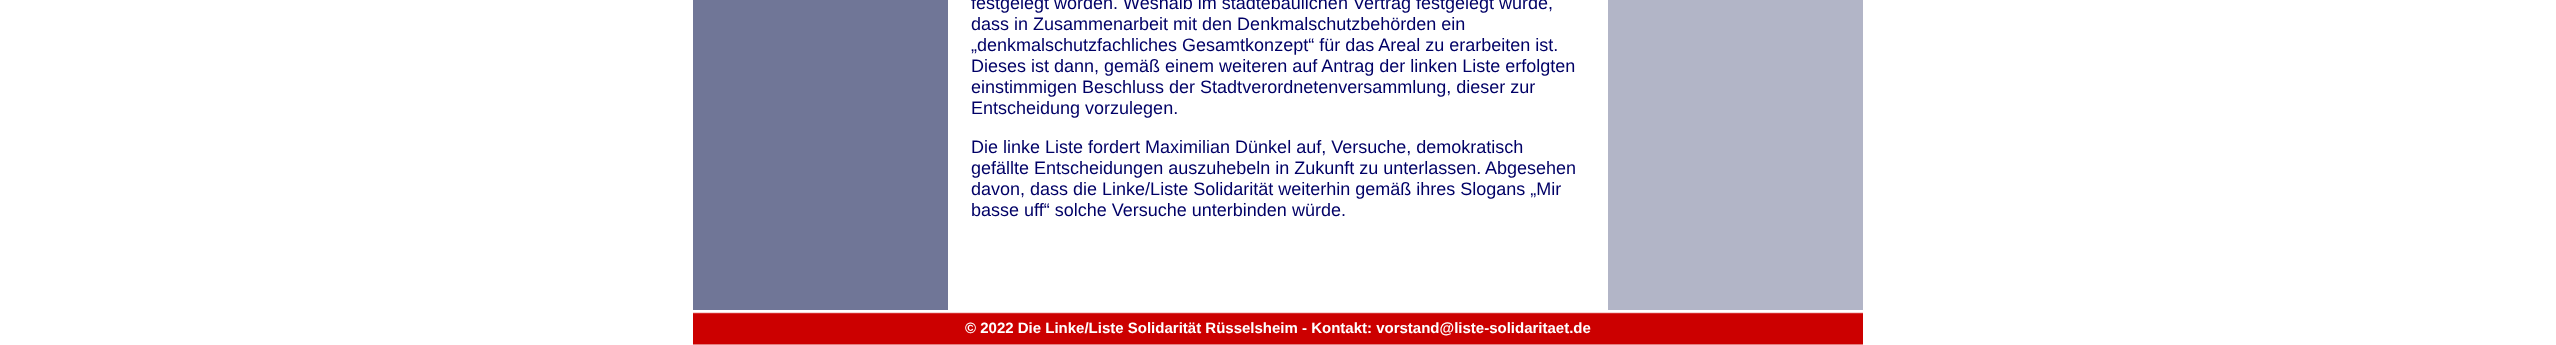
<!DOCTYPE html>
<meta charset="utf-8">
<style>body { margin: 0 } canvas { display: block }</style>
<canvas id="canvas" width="2556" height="345"></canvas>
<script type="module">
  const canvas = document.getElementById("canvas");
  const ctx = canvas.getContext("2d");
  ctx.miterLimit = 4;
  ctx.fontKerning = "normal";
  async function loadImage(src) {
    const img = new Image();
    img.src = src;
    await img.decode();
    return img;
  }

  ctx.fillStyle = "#ffffff";
  ctx.fillRect(0, 0, 2556, 345);
  ctx.fillStyle = "#707697";
  ctx.fillRect(693, 0, 255, 310);
  ctx.font = "18px Liberation Sans";
  ctx.fillStyle = "#000066";
  ctx.fillText("festgelegt worden. Weshalb im städtebaulichen Vertrag festgelegt wurde,", 971, 9);
  ctx.fillText("dass in Zusammenarbeit mit den Denkmalschutzbehörden ein", 971, 30);
  ctx.fillText("„denkmalschutzfachliches Gesamtkonzept“ für das Areal zu erarbeiten ist.", 971, 51);
  ctx.fillText("Dieses ist dann, gemäß einem weiteren auf Antrag der linken Liste erfolgten", 971, 72);
  ctx.fillText("einstimmigen Beschluss der Stadtverordnetenversammlung, dieser zur", 971, 93);
  ctx.fillText("Entscheidung vorzulegen.", 971, 114);
  ctx.fillText("Die linke Liste fordert Maximilian Dünkel auf, Versuche, demokratisch", 971, 153);
  ctx.fillText("gefällte Entscheidungen auszuhebeln in Zukunft zu unterlassen.", 971, 174);
  ctx.fillText("Abgesehen", 1485, 174);
  ctx.fillText("davon, dass die Linke/Liste Solidarität weiterhin gemäß ihres Slogans „Mir", 971, 195);
  ctx.fillText("basse uff“ solche Versuche unterbinden würde.", 971, 216);
  ctx.fillStyle = "#b2b5c7";
  ctx.fillRect(1608, 0, 255, 310);
  ctx.drawImage(await loadImage("img1.png"), 693, 310, 1170, 35);
  ctx.font = "bold 15px Liberation Sans";
  ctx.fillStyle = "#ffffff";
  ctx.fillText("© 2022 Die Linke/Liste Solidarität Rüsselsheim - Kontakt: vorstand@liste-solidaritaet.de", 965, 333);
</script>
